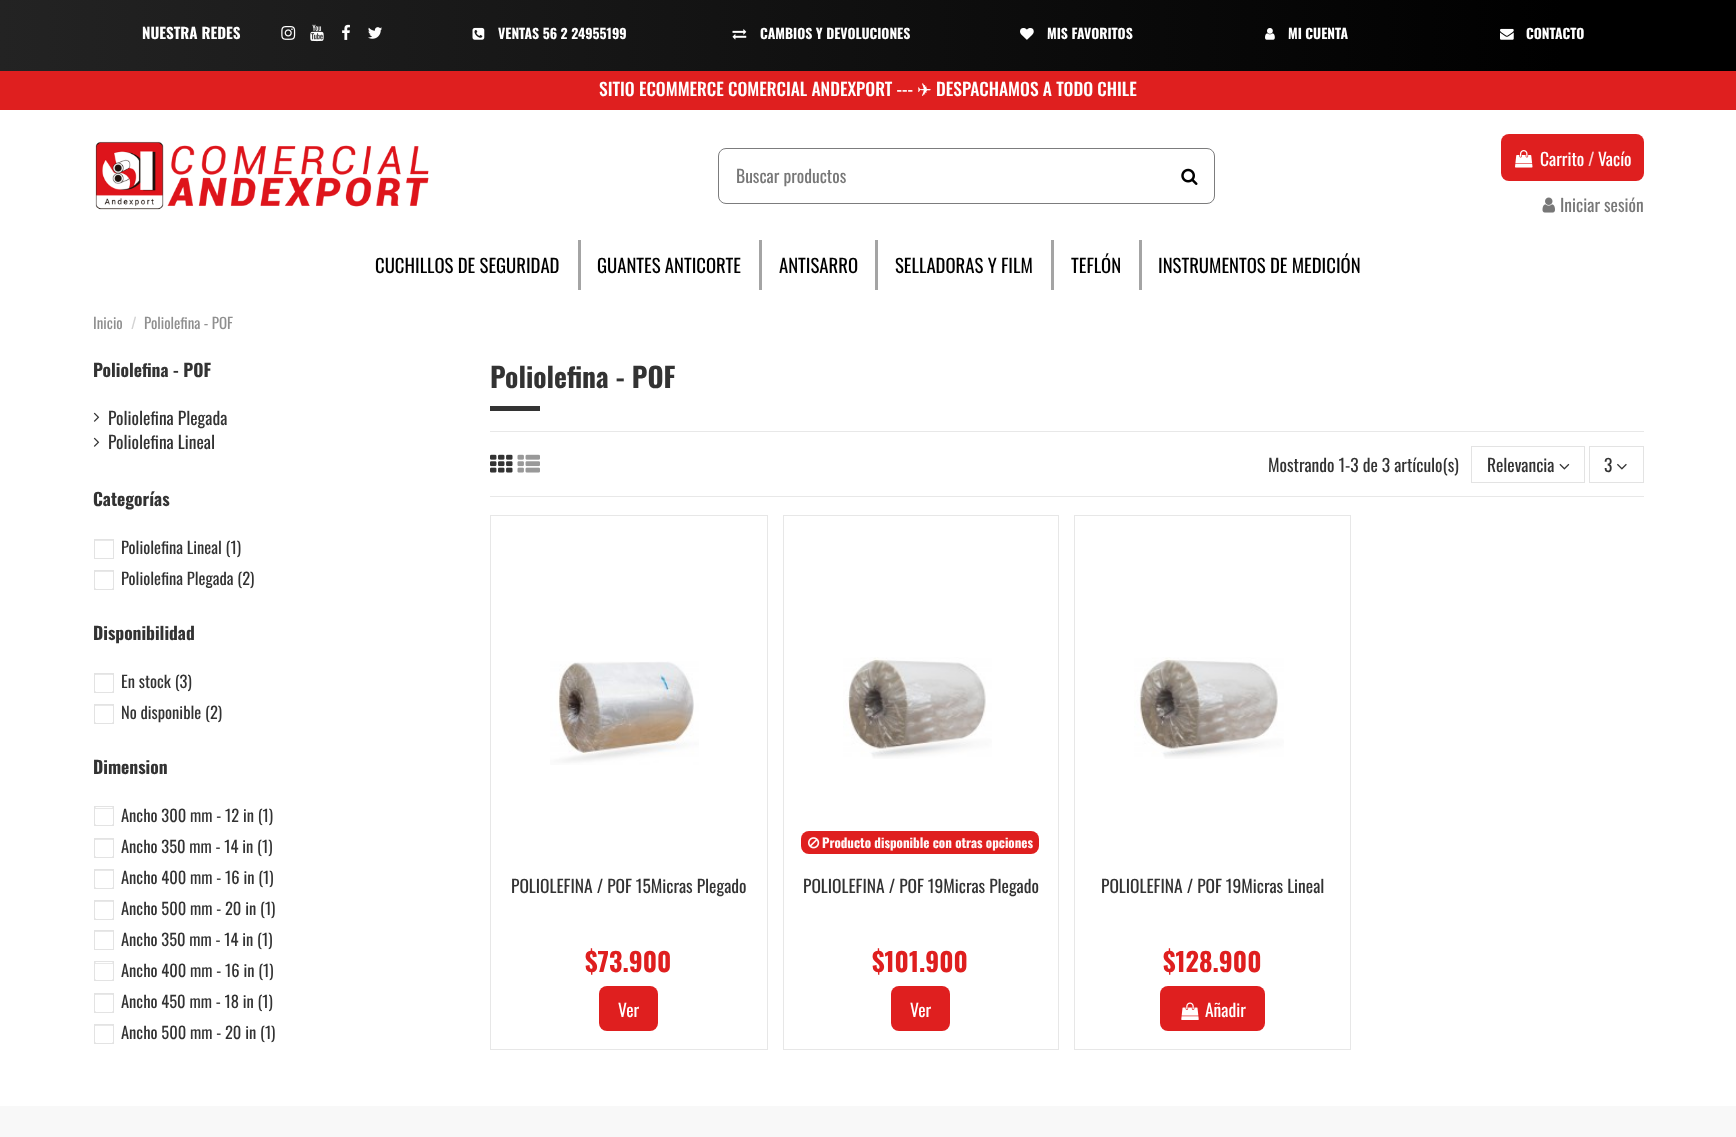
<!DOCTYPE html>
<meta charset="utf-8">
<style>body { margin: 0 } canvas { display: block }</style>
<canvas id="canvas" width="1736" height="1137"></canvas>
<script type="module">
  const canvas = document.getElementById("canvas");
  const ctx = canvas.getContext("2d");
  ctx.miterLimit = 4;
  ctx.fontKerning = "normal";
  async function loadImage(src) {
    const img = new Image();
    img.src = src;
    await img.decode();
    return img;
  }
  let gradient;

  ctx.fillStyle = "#ffffff";
  ctx.fillRect(0, 0, 1736, 1137);
  gradient = ctx.createLinearGradient(0, 33, 1736, 33);
  gradient.addColorStop(0, "#232323");
  gradient.addColorStop(0.9, "#000000");
  ctx.fillStyle = gradient;
  ctx.fillRect(0, 0, 1736, 71);
  ctx.font = "bold 15px Oswald";
  ctx.fillStyle = "#ffffff";
  ctx.fillText("NUESTRA REDES", 142, 39);
  ctx.drawImage(await loadImage("img1.png"), 281, 26, 15, 14);
  ctx.drawImage(await loadImage("img2.png"), 310, 24, 14, 18);
  ctx.drawImage(await loadImage("img3.png"), 342, 24, 8, 16);
  ctx.drawImage(await loadImage("img4.png"), 368, 27, 14, 12);
  ctx.drawImage(await loadImage("img5.png"), 472, 27, 13, 13);
  ctx.font = "bold 13.75px Oswald";
  ctx.fillText("VENTAS 56 2 24955199", 498, 39);
  ctx.drawImage(await loadImage("img6.png"), 732, 29, 15, 11);
  ctx.fillText("CAMBIOS Y DEVOLUCIONES", 760, 39);
  ctx.drawImage(await loadImage("img7.png"), 1020, 28, 14, 12);
  ctx.fillText("MIS FAVORITOS", 1047, 39);
  ctx.drawImage(await loadImage("img8.png"), 1265, 28, 10, 12);
  ctx.fillText("MI CUENTA", 1288, 39);
  ctx.drawImage(await loadImage("img9.png"), 1500, 28, 14, 12);
  ctx.fillText("CONTACTO", 1526, 39);
  ctx.fillStyle = "#df1f1f";
  ctx.fillRect(0, 71, 1736, 39);
  ctx.font = "500 17.5px Oswald";
  ctx.fillStyle = "#ffffff";
  ctx.fillText("SITIO ECOMMERCE COMERCIAL ANDEXPORT ---", 599, 96);
  ctx.font = "17.5px DejaVu Sans";
  ctx.fillText("✈", 917, 96);
  ctx.font = "500 17.5px Oswald";
  ctx.fillText("DESPACHAMOS A TODO CHILE", 936, 96);
  ctx.drawImage(await loadImage("img10.png"), 95, 141, 334, 69);
  ctx.beginPath();
  ctx.roundRect(718.5, 148.5, 496, 55, 7.5);
  ctx.strokeStyle = "#7c7c7d";
  ctx.stroke();
  ctx.font = "17.5px Oswald";
  ctx.fillStyle = "#777777";
  ctx.fillText("Buscar productos", 736, 183);
  ctx.drawImage(await loadImage("img11.png"), 1181, 168, 17, 17);
  ctx.fillStyle = "#df1f1f";
  ctx.beginPath();
  ctx.roundRect(1501, 134, 143, 47, 8);
  ctx.fill();
  ctx.drawImage(await loadImage("img12.png"), 1515, 150, 18, 18);
  ctx.fillStyle = "#ffffff";
  ctx.fillText("Carrito", 1540, 166);
  ctx.fillStyle = "#f9d2d2";
  ctx.fillText("/", 1588, 166);
  ctx.fillStyle = "#ffffff";
  ctx.fillText("Vacío", 1598, 166);
  ctx.drawImage(await loadImage("img13.png"), 1542, 197, 13, 16);
  ctx.fillStyle = "#777777";
  ctx.fillText("Iniciar sesión", 1560, 212);
  ctx.font = "18.75px Oswald";
  ctx.fillStyle = "#000000";
  ctx.fillText("CUCHILLOS DE SEGURIDAD", 375, 273);
  ctx.fillStyle = "#a4a4a4";
  ctx.fillRect(578, 240, 3, 50);
  ctx.fillStyle = "#000000";
  ctx.fillText("GUANTES ANTICORTE", 597, 273);
  ctx.fillStyle = "#a4a4a4";
  ctx.fillRect(759, 240, 3, 50);
  ctx.fillStyle = "#000000";
  ctx.fillText("ANTISARRO", 779, 273);
  ctx.fillStyle = "#a4a4a4";
  ctx.fillRect(875, 240, 3, 50);
  ctx.fillStyle = "#000000";
  ctx.fillText("SELLADORAS Y FILM", 895, 273);
  ctx.fillStyle = "#a4a4a4";
  ctx.fillRect(1051, 240, 3, 50);
  ctx.fillStyle = "#000000";
  ctx.fillText("TEFLÓN", 1071, 273);
  ctx.fillStyle = "#a4a4a4";
  ctx.fillRect(1139, 240, 3, 50);
  ctx.fillStyle = "#000000";
  ctx.fillText("INSTRUMENTOS DE MEDICIÓN", 1158, 273);
  ctx.font = "15px Oswald";
  ctx.fillStyle = "#8f8f8f";
  ctx.fillText("Inicio", 93, 329);
  ctx.fillStyle = "#d2d2d2";
  ctx.fillText("/", 131, 329);
  ctx.fillStyle = "#8f8f8f";
  ctx.fillText("Poliolefina - POF", 144, 329);
  ctx.font = "bold 17.5px Oswald";
  ctx.fillStyle = "#333333";
  ctx.fillText("Poliolefina - POF", 93, 377);
  ctx.drawImage(await loadImage("img14.png"), 93, 412, 7, 10);
  ctx.font = "17.5px Oswald";
  ctx.fillText("Poliolefina Plegada", 108, 425);
  ctx.drawImage(await loadImage("img14.png"), 93, 437, 7, 10);
  ctx.fillText("Poliolefina Lineal", 108, 449);
  ctx.font = "bold 17.5px Oswald";
  ctx.fillText("Categorías", 93, 506);
  ctx.fillStyle = "#e8e8e8";
  ctx.fillRect(95, 540, 18, 1);
  ctx.strokeStyle = "#e3e3e3";
  ctx.strokeRect(94.5, 539.5, 19, 19);
  ctx.font = "16.5px Oswald";
  ctx.fillStyle = "#333333";
  ctx.fillText("Poliolefina Lineal (1)", 121, 554);
  ctx.fillStyle = "#e8e8e8";
  ctx.fillRect(95, 571, 18, 1);
  ctx.strokeRect(94.5, 570.5, 19, 19);
  ctx.beginPath();
  ctx.roundRect(94.5, 570.5, 19, 19, 2);
  ctx.stroke();
  ctx.fillStyle = "#333333";
  ctx.fillText("Poliolefina Plegada (2)", 121, 585);
  ctx.font = "bold 17.5px Oswald";
  ctx.fillText("Disponibilidad", 93, 640);
  ctx.fillStyle = "#e8e8e8";
  ctx.fillRect(95, 674, 18, 1);
  ctx.strokeRect(94.5, 673.5, 19, 19);
  ctx.beginPath();
  ctx.roundRect(94.5, 673.5, 19, 19, 2);
  ctx.stroke();
  ctx.font = "16.5px Oswald";
  ctx.fillStyle = "#333333";
  ctx.fillText("En stock (3)", 121, 688);
  ctx.fillStyle = "#e8e8e8";
  ctx.fillRect(95, 705, 18, 1);
  ctx.strokeRect(94.5, 704.5, 19, 19);
  ctx.beginPath();
  ctx.roundRect(94.5, 704.5, 19, 19, 2);
  ctx.stroke();
  ctx.fillStyle = "#333333";
  ctx.fillText("No disponible (2)", 121, 719);
  ctx.font = "bold 17.5px Oswald";
  ctx.fillText("Dimension", 93, 774);
  ctx.fillStyle = "#e8e8e8";
  ctx.fillRect(95, 808, 18, 1);
  ctx.strokeRect(94.5, 806.5, 19, 19);
  ctx.beginPath();
  ctx.roundRect(94.5, 806.5, 19, 19, 2);
  ctx.stroke();
  ctx.font = "16.5px Oswald";
  ctx.fillStyle = "#333333";
  ctx.fillText("Ancho 300 mm - 12 in (1)", 121, 822);
  ctx.fillStyle = "#e8e8e8";
  ctx.fillRect(95, 839, 18, 1);
  ctx.strokeRect(94.5, 838.5, 19, 19);
  ctx.beginPath();
  ctx.roundRect(94.5, 838.5, 19, 19, 2);
  ctx.stroke();
  ctx.fillStyle = "#333333";
  ctx.fillText("Ancho 350 mm - 14 in (1)", 121, 853);
  ctx.fillStyle = "#e8e8e8";
  ctx.fillRect(95, 870, 18, 1);
  ctx.strokeRect(94.5, 869.5, 19, 19);
  ctx.beginPath();
  ctx.roundRect(94.5, 869.5, 19, 19, 2);
  ctx.stroke();
  ctx.fillStyle = "#333333";
  ctx.fillText("Ancho 400 mm - 16 in (1)", 121, 884);
  ctx.fillStyle = "#e8e8e8";
  ctx.fillRect(95, 901, 18, 1);
  ctx.strokeRect(94.5, 900.5, 19, 19);
  ctx.beginPath();
  ctx.roundRect(94.5, 900.5, 19, 19, 2);
  ctx.stroke();
  ctx.fillStyle = "#333333";
  ctx.fillText("Ancho 500 mm - 20 in (1)", 121, 915);
  ctx.fillStyle = "#e8e8e8";
  ctx.fillRect(95, 931, 18, 1);
  ctx.strokeRect(94.5, 930.5, 19, 19);
  ctx.fillStyle = "#333333";
  ctx.fillText("Ancho 350 mm - 14 in (1)", 121, 946);
  ctx.fillStyle = "#e8e8e8";
  ctx.fillRect(95, 963, 18, 1);
  ctx.strokeRect(94.5, 961.5, 19, 19);
  ctx.beginPath();
  ctx.roundRect(94.5, 961.5, 19, 19, 2);
  ctx.stroke();
  ctx.fillStyle = "#333333";
  ctx.fillText("Ancho 400 mm - 16 in (1)", 121, 977);
  ctx.fillStyle = "#e8e8e8";
  ctx.fillRect(95, 994, 18, 1);
  ctx.strokeRect(94.5, 993.5, 19, 19);
  ctx.beginPath();
  ctx.roundRect(94.5, 993.5, 19, 19, 2);
  ctx.stroke();
  ctx.fillStyle = "#333333";
  ctx.fillText("Ancho 450 mm - 18 in (1)", 121, 1008);
  ctx.fillStyle = "#e8e8e8";
  ctx.fillRect(95, 1025, 18, 1);
  ctx.strokeRect(94.5, 1024.5, 19, 19);
  ctx.beginPath();
  ctx.roundRect(94.5, 1024.5, 19, 19, 2);
  ctx.stroke();
  ctx.fillStyle = "#333333";
  ctx.fillText("Ancho 500 mm - 20 in (1)", 121, 1039);
  ctx.font = "bold 27.5px Oswald";
  ctx.fillText("Poliolefina - POF", 490, 388);
  ctx.fillRect(490, 406, 50, 5);
  ctx.fillStyle = "#e8e8e8";
  ctx.fillRect(490, 431, 1154, 1);
  ctx.fillRect(490, 496, 1154, 1);
  ctx.drawImage(await loadImage("img15.png"), 490, 454, 23, 19);
  ctx.drawImage(await loadImage("img16.png"), 517, 454, 23, 19);
  ctx.font = "17.5px Oswald";
  ctx.fillStyle = "#333333";
  ctx.fillText("Mostrando 1-3 de 3 artículo(s)", 1268, 472);
  ctx.strokeRect(1471.5, 446.5, 113, 36);
  ctx.fillText("Relevancia", 1487, 472);
  ctx.drawImage(await loadImage("img17.png"), 1559, 463, 11, 7);
  ctx.strokeRect(1589.5, 446.5, 54, 36);
  ctx.fillText("3", 1604, 472);
  ctx.drawImage(await loadImage("img18.png"), 1617, 463, 10, 7);
  ctx.strokeStyle = "#e7e7e7";
  ctx.strokeRect(490.5, 515.5, 277, 534);
  ctx.drawImage(await loadImage("img19.png"), 550, 661, 149, 104);
  ctx.fillText("POLIOLEFINA / POF 15Micras Plegado", 511, 893);
  ctx.font = "bold 26px Oswald";
  ctx.fillStyle = "#df1f1f";
  ctx.fillText("$73.900", 585, 972);
  ctx.beginPath();
  ctx.roundRect(599, 986, 59, 45, 8);
  ctx.fill();
  ctx.font = "17.5px Oswald";
  ctx.fillStyle = "#ffffff";
  ctx.fillText("Ver", 618, 1017);
  ctx.strokeRect(783.5, 515.5, 275, 534);
  ctx.drawImage(await loadImage("img20.png"), 843, 657, 149, 102);
  ctx.fillStyle = "#df1f1f";
  ctx.beginPath();
  ctx.roundRect(801, 831, 238, 23, 8);
  ctx.fill();
  ctx.drawImage(await loadImage("img21.png"), 807, 837, 13, 12);
  ctx.font = "bold 13.1px Oswald";
  ctx.fillStyle = "#fff7f7";
  ctx.fillText("Producto disponible con otras opciones", 822, 848);
  ctx.font = "17.5px Oswald";
  ctx.fillStyle = "#333333";
  ctx.fillText("POLIOLEFINA / POF 19Micras Plegado", 803, 893);
  ctx.font = "bold 26px Oswald";
  ctx.fillStyle = "#df1f1f";
  ctx.fillText("$101.900", 872, 972);
  ctx.beginPath();
  ctx.roundRect(891, 986, 59, 45, 8);
  ctx.fill();
  ctx.font = "17.5px Oswald";
  ctx.fillStyle = "#ffffff";
  ctx.fillText("Ver", 910, 1017);
  ctx.strokeRect(1074.5, 515.5, 276, 534);
  ctx.drawImage(await loadImage("img22.png"), 1134, 657, 150, 102);
  ctx.fillStyle = "#333333";
  ctx.fillText("POLIOLEFINA / POF 19Micras Lineal", 1101, 893);
  ctx.font = "bold 26px Oswald";
  ctx.fillStyle = "#df1f1f";
  ctx.fillText("$128.900", 1163, 972);
  ctx.beginPath();
  ctx.roundRect(1160, 986, 105, 45, 8);
  ctx.fill();
  ctx.drawImage(await loadImage("img23.png"), 1181, 1002, 18, 18);
  ctx.font = "17.5px Oswald";
  ctx.fillStyle = "#ffffff";
  ctx.fillText("Añadir", 1205, 1017);
  ctx.fillStyle = "#f8f8f8";
  ctx.fillRect(0, 1106, 1736, 31);
</script>
